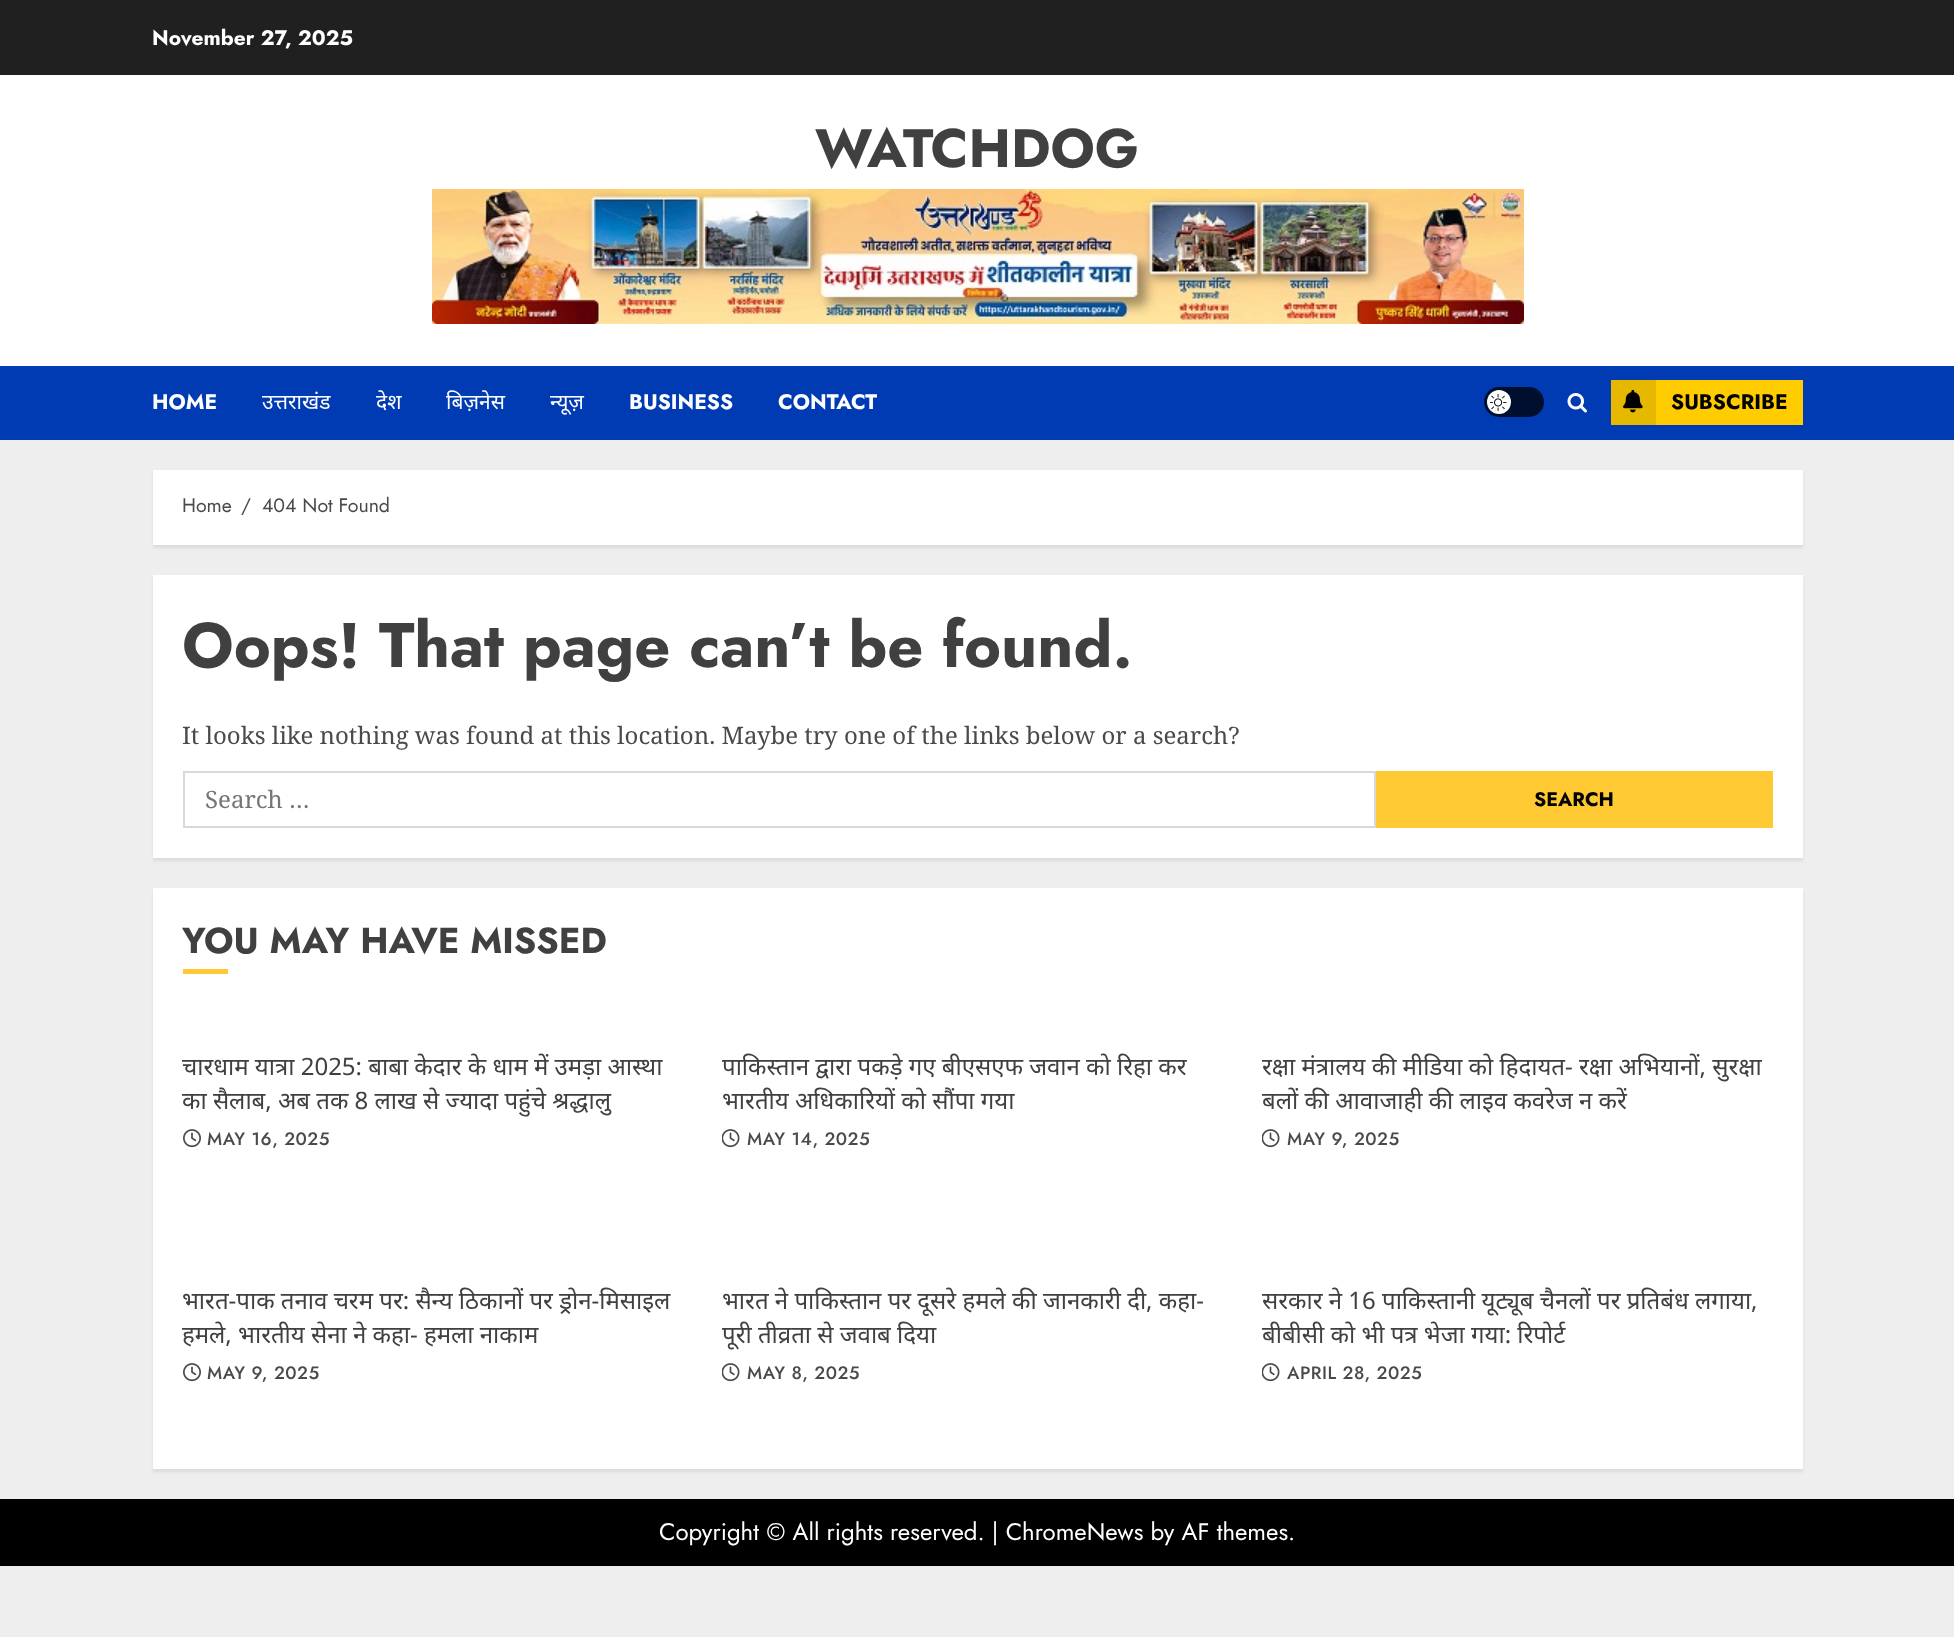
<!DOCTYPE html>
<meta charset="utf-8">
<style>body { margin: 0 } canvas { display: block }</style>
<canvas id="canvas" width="1954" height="1637"></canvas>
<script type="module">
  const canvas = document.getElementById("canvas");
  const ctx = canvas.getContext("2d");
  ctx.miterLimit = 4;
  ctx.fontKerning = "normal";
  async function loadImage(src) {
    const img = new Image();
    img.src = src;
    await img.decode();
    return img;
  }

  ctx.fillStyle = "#eeeeee";
  ctx.fillRect(0, 0, 1954, 1637);
  ctx.fillStyle = "#202020";
  ctx.fillRect(0, 0, 1954, 75);
  ctx.font = "bold 21px Jost";
  ctx.fillStyle = "#ffffff";
  ctx.fillText("November 27, 2025", 152, 45);
  ctx.fillRect(0, 75, 1954, 291);
  ctx.font = "bold 54px Jost";
  ctx.fillStyle = "#404040";
  ctx.fillText("WATCHDOG", 815, 167);
  ctx.drawImage(await loadImage("img1.png"), 432, 189, 1092, 135);
  ctx.fillStyle = "#003bb3";
  ctx.fillRect(0, 366, 1954, 74);
  ctx.font = "bold 21px Jost";
  ctx.fillStyle = "#ffffff";
  ctx.fillText("HOME", 152, 409);
  ctx.font = "21px Noto Sans";
  ctx.fillText("उत्तराखंड", 262, 409);
  ctx.fillText("देश", 376, 409);
  ctx.fillText("बिज़नेस", 446, 409);
  ctx.fillText("न्यूज़", 550, 409);
  ctx.font = "bold 21px Jost";
  ctx.fillText("BUSINESS", 629, 409);
  ctx.fillText("CONTACT", 778, 409);
  ctx.fillStyle = "#000f2d";
  ctx.beginPath();
  ctx.roundRect(1484, 387, 60, 30, 15);
  ctx.fill();
  ctx.fillStyle = "#ffffff";
  ctx.beginPath();
  ctx.arc(1499, 402, 12, 0, Math.PI * 2);
  ctx.fill();
  ctx.drawImage(await loadImage("img2.png"), 1490, 394, 17, 17);
  ctx.drawImage(await loadImage("img3.png"), 1567, 393, 20, 20);
  ctx.fillStyle = "#ffcc00";
  ctx.fillRect(1656, 380, 147, 45);
  ctx.fillStyle = "#e6b800";
  ctx.fillRect(1611, 380, 45, 45);
  ctx.drawImage(await loadImage("img4.png"), 1623, 389, 20, 24);
  ctx.fillStyle = "#000000";
  ctx.fillText("SUBSCRIBE", 1671, 409);
  ctx.fillStyle = "rgba(0, 0, 0, 0.08)";
  ctx.filter = "blur(1.5px)";
  ctx.beginPath();
  ctx.rect(153, 473, 1650, 75);
  ctx.fill();
  ctx.filter = "none";
  ctx.fillStyle = "#ffffff";
  ctx.fillRect(153, 470, 1650, 75);
  ctx.font = "19.5px Jost";
  ctx.fillStyle = "#4a4a4a";
  ctx.fillText("Home", 182, 512);
  ctx.fillText("/", 241, 512);
  ctx.fillText("404 Not Found", 262, 512);
  ctx.fillStyle = "rgba(0, 0, 0, 0.08)";
  ctx.filter = "blur(1.5px)";
  ctx.beginPath();
  ctx.rect(153, 578, 1650, 283);
  ctx.fill();
  ctx.filter = "none";
  ctx.fillStyle = "#ffffff";
  ctx.fillRect(153, 575, 1650, 283);
  ctx.font = "bold 63px Jost";
  ctx.fillStyle = "#404040";
  ctx.fillText("Oops! That page can’t be found.", 182, 667);
  ctx.font = "24px Noto Serif";
  ctx.fillStyle = "#4a4a4a";
  ctx.fillText("It looks like nothing was found at this location. Maybe try one of the links below or a search?", 182, 744);
  ctx.strokeStyle = "#d9d9d9";
  ctx.lineWidth = 2;
  ctx.strokeRect(184, 772, 1191, 55);
  ctx.fillStyle = "#757575";
  ctx.fillText("Search …", 205, 808);
  ctx.fillStyle = "#ffc934";
  ctx.fillRect(1376, 771, 397, 57);
  ctx.font = "bold 19.5px Jost";
  ctx.fillStyle = "#000000";
  ctx.fillText("SEARCH", 1534, 806);
  ctx.fillStyle = "rgba(0, 0, 0, 0.08)";
  ctx.filter = "blur(1.5px)";
  ctx.beginPath();
  ctx.rect(153, 891, 1650, 581);
  ctx.fill();
  ctx.filter = "none";
  ctx.fillStyle = "#ffffff";
  ctx.fillRect(153, 888, 1650, 581);
  ctx.font = "bold 36px Jost";
  ctx.fillStyle = "#404040";
  ctx.fillText("YOU MAY HAVE MISSED", 182, 953);
  ctx.fillStyle = "#ffc934";
  ctx.fillRect(183, 969, 45, 5);
  ctx.font = "24px Noto Sans";
  ctx.fillStyle = "#404040";
  ctx.fillText("चारधाम यात्रा 2025: बाबा केदार के धाम में उमड़ा आस्था", 182, 1075);
  ctx.fillText("का सैलाब, अब तक 8 लाख से ज्यादा पहुंचे श्रद्धालु", 182, 1109);
  ctx.drawImage(await loadImage("img5.png"), 183, 1129, 18, 19);
  ctx.letterSpacing = "0.5px";
  ctx.font = "500 18px Jost";
  ctx.fillStyle = "#4a4a4a";
  ctx.fillText("MAY 16, 2025", 207, 1145);
  ctx.letterSpacing = "0px";
  ctx.font = "24px Noto Sans";
  ctx.fillStyle = "#404040";
  ctx.fillText("पाकिस्तान द्वारा पकड़े गए बीएसएफ जवान को रिहा कर", 722, 1075);
  ctx.fillText("भारतीय अधिकारियों को सौंपा गया", 722, 1109);
  ctx.drawImage(await loadImage("img6.png"), 722, 1129, 18, 19);
  ctx.letterSpacing = "0.5px";
  ctx.font = "500 18px Jost";
  ctx.fillStyle = "#4a4a4a";
  ctx.fillText("MAY 14, 2025", 747, 1145);
  ctx.letterSpacing = "0px";
  ctx.font = "24px Noto Sans";
  ctx.fillStyle = "#404040";
  ctx.fillText("रक्षा मंत्रालय की मीडिया को हिदायत- रक्षा अभियानों, सुरक्षा", 1262, 1075);
  ctx.fillText("बलों की आवाजाही की लाइव कवरेज न करें", 1262, 1109);
  ctx.drawImage(await loadImage("img6.png"), 1262, 1129, 18, 19);
  ctx.letterSpacing = "0.5px";
  ctx.font = "500 18px Jost";
  ctx.fillStyle = "#4a4a4a";
  ctx.fillText("MAY 9, 2025", 1287, 1145);
  ctx.letterSpacing = "0px";
  ctx.font = "24px Noto Sans";
  ctx.fillStyle = "#404040";
  ctx.fillText("भारत-पाक तनाव चरम पर: सैन्य ठिकानों पर ड्रोन-मिसाइल", 182, 1309);
  ctx.fillText("हमले, भारतीय सेना ने कहा- हमला नाकाम", 182, 1343);
  ctx.drawImage(await loadImage("img5.png"), 183, 1363, 18, 19);
  ctx.letterSpacing = "0.5px";
  ctx.font = "500 18px Jost";
  ctx.fillStyle = "#4a4a4a";
  ctx.fillText("MAY 9, 2025", 207, 1379);
  ctx.letterSpacing = "0px";
  ctx.font = "24px Noto Sans";
  ctx.fillStyle = "#404040";
  ctx.fillText("भारत ने पाकिस्तान पर दूसरे हमले की जानकारी दी, कहा-", 722, 1309);
  ctx.save();
  ctx.beginPath();
  ctx.rect(722, 1284, 510, 105);
  ctx.clip();
  ctx.fillText("पूरी तीव्रता से जवाब दिया", 722, 1343);
  ctx.restore();
  ctx.drawImage(await loadImage("img6.png"), 722, 1363, 18, 19);
  ctx.letterSpacing = "0.5px";
  ctx.font = "500 18px Jost";
  ctx.fillStyle = "#4a4a4a";
  ctx.fillText("MAY 8, 2025", 747, 1379);
  ctx.letterSpacing = "0px";
  ctx.font = "24px Noto Sans";
  ctx.fillStyle = "#404040";
  ctx.fillText("सरकार ने 16 पाकिस्तानी यूट्यूब चैनलों पर प्रतिबंध लगाया,", 1262, 1309);
  ctx.save();
  ctx.beginPath();
  ctx.rect(1262, 1284, 510, 105);
  ctx.clip();
  ctx.fillText("बीबीसी को भी पत्र भेजा गया: रिपोर्ट", 1262, 1343);
  ctx.restore();
  ctx.drawImage(await loadImage("img6.png"), 1262, 1363, 18, 19);
  ctx.letterSpacing = "0.5px";
  ctx.font = "500 18px Jost";
  ctx.fillStyle = "#4a4a4a";
  ctx.fillText("APRIL 28, 2025", 1287, 1379);
  ctx.fillStyle = "#000000";
  ctx.fillRect(0, 1499, 1954, 67);
  ctx.letterSpacing = "0px";
  ctx.font = "24px Jost";
  ctx.fillStyle = "#ffffff";
  ctx.fillText("Copyright © All rights reserved. | ChromeNews by AF themes.", 659, 1540);
</script>
